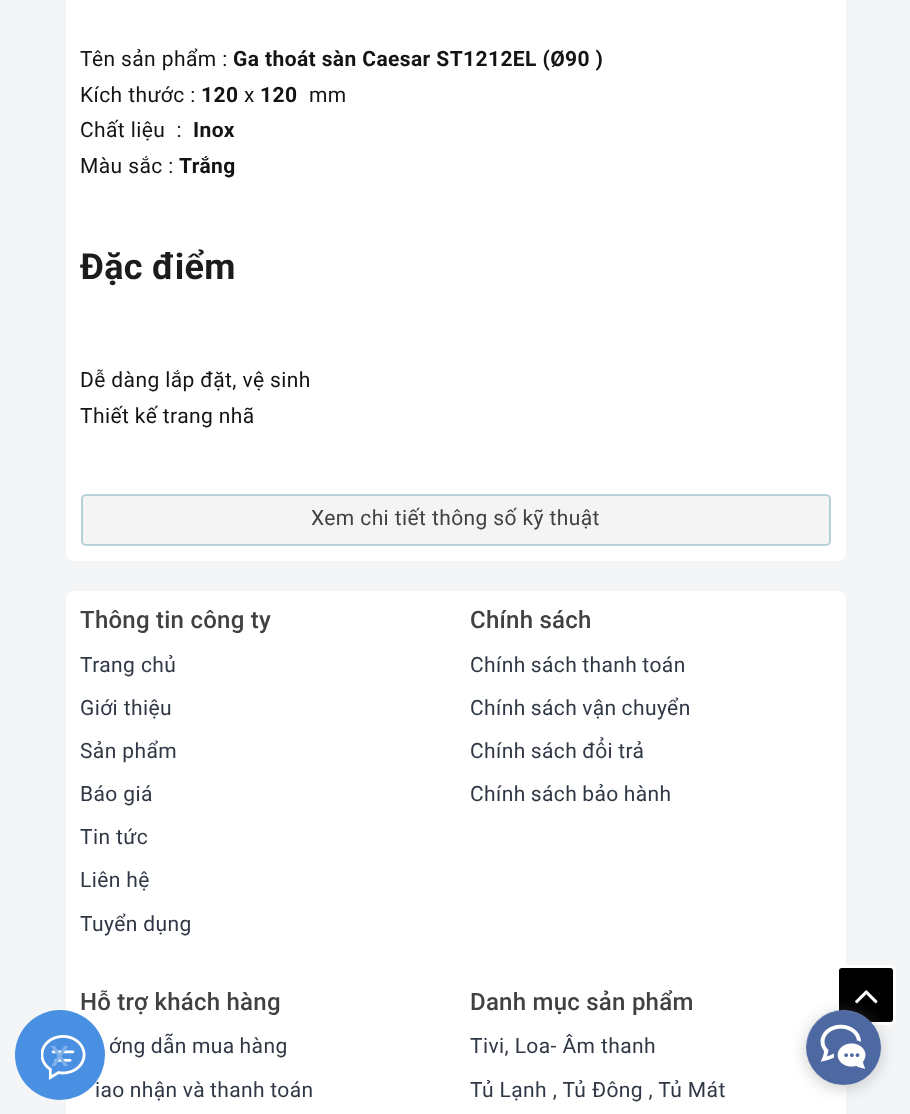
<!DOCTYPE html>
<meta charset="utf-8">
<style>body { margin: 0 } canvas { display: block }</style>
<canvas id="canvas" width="910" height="1114"></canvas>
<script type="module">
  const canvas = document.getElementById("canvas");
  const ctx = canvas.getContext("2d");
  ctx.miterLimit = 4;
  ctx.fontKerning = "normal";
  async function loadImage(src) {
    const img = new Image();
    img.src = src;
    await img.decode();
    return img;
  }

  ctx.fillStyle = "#f3f5f7";
  ctx.fillRect(0, 0, 910, 1114);
  ctx.fillStyle = "#ffffff";
  ctx.beginPath();
  ctx.roundRect(66, -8, 780, 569, 8);
  ctx.fill();
  ctx.letterSpacing = "0.4px";
  ctx.font = "21px Roboto";
  ctx.fillStyle = "#141414";
  ctx.fillText("Tên sản phẩm :", 80, 66);
  ctx.font = "bold 21px Roboto";
  ctx.fillText("Ga thoát sàn Caesar ST1212EL (Ø90 )", 233, 66);
  ctx.font = "21px Roboto";
  ctx.fillText("Kích thước :", 80, 102);
  ctx.font = "bold 21px Roboto";
  ctx.fillText("120", 201, 102);
  ctx.font = "21px Roboto";
  ctx.fillText("x", 244, 102);
  ctx.font = "bold 21px Roboto";
  ctx.fillText("120", 260, 102);
  ctx.font = "21px Roboto";
  ctx.fillText("mm", 309, 102);
  ctx.fillText("Chất liệu  :", 80, 137);
  ctx.font = "bold 21px Roboto";
  ctx.fillText("Inox", 193, 137);
  ctx.font = "21px Roboto";
  ctx.fillText("Màu sắc :", 80, 173);
  ctx.font = "bold 21px Roboto";
  ctx.fillText("Trắng", 179, 173);
  ctx.letterSpacing = "0.25px";
  ctx.font = "bold 36px Roboto";
  ctx.fillStyle = "#1c1c1c";
  ctx.fillText("Đặc điểm", 80, 279);
  ctx.letterSpacing = "0.4px";
  ctx.font = "21px Roboto";
  ctx.fillStyle = "#141414";
  ctx.fillText("Dễ dàng lắp đặt, vệ sinh", 80, 387);
  ctx.fillText("Thiết kế trang nhã", 80, 423);
  ctx.fillStyle = "#f4f4f4";
  ctx.beginPath();
  ctx.roundRect(82, 495, 748, 50, 4);
  ctx.fill();
  ctx.strokeStyle = "#b8d1d8";
  ctx.lineWidth = 2;
  ctx.stroke();
  ctx.fillStyle = "#414042";
  ctx.fillText("Xem chi tiết thông số kỹ thuật", 311, 525);
  ctx.fillStyle = "#ffffff";
  ctx.beginPath();
  ctx.roundRect(66, 591, 780, 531, 8);
  ctx.fill();
  ctx.letterSpacing = "0.25px";
  ctx.font = "500 24px Roboto";
  ctx.fillStyle = "#414042";
  ctx.fillText("Hỗ trợ khách hàng", 80, 1010);
  ctx.letterSpacing = "0.4px";
  ctx.wordSpacing = "-0.5px";
  ctx.font = "21px Roboto";
  ctx.fillStyle = "#303846";
  ctx.fillText("iao nhận và thanh toán", 95, 1097);
  ctx.fillStyle = "#4a90e2";
  ctx.beginPath();
  ctx.arc(60, 1055, 45, 0, Math.PI * 2);
  ctx.fill();
  ctx.drawImage(await loadImage("img1.png"), 41, 1035, 45, 45);
  ctx.wordSpacing = "0px";
  ctx.font = "38px Roboto";
  ctx.fillStyle = "#80b1eb";
  ctx.save();
  ctx.translate(69, 1046);
  ctx.rotate(180 * Math.PI / 180);
  ctx.fillText("x", 0, 0);
  ctx.restore();
  ctx.letterSpacing = "0.25px";
  ctx.font = "500 24px Roboto";
  ctx.fillStyle = "#414042";
  ctx.fillText("Thông tin công ty", 80, 628);
  ctx.letterSpacing = "0.4px";
  ctx.font = "21px Roboto";
  ctx.fillStyle = "#303846";
  ctx.fillText("Trang chủ", 80, 672);
  ctx.fillText("Giới thiệu", 80, 715);
  ctx.fillText("Sản phẩm", 80, 758);
  ctx.fillText("Báo giá", 80, 801);
  ctx.fillText("Tin tức", 80, 844);
  ctx.fillText("Liên hệ", 80, 887);
  ctx.fillText("Tuyển dụng", 80, 931);
  ctx.letterSpacing = "0.25px";
  ctx.font = "500 24px Roboto";
  ctx.fillStyle = "#414042";
  ctx.fillText("Chính sách", 470, 628);
  ctx.letterSpacing = "0.4px";
  ctx.wordSpacing = "-0.5px";
  ctx.font = "21px Roboto";
  ctx.fillStyle = "#303846";
  ctx.fillText("Chính sách thanh toán", 470, 672);
  ctx.fillText("Chính sách vận chuyển", 470, 715);
  ctx.fillText("Chính sách đổi trả", 470, 758);
  ctx.fillText("Chính sách bảo hành", 470, 801);
  ctx.fillText("ớng dẫn mua hàng", 109, 1053);
  ctx.letterSpacing = "0.25px";
  ctx.wordSpacing = "0px";
  ctx.font = "500 24px Roboto";
  ctx.fillStyle = "#414042";
  ctx.fillText("Danh mục sản phẩm", 470, 1010);
  ctx.letterSpacing = "0.4px";
  ctx.font = "21px Roboto";
  ctx.fillStyle = "#303846";
  ctx.fillText("Tivi, Loa- Âm thanh", 470, 1053);
  ctx.fillText("Tủ Lạnh , Tủ Đông , Tủ Mát", 470, 1097);
  ctx.fillStyle = "#000000";
  ctx.beginPath();
  ctx.roundRect(837.5, 966.5, 57, 57, 4.5);
  ctx.fill();
  ctx.strokeStyle = "#ffffff";
  ctx.lineWidth = 3;
  ctx.stroke();
  ctx.drawImage(await loadImage("img2.png"), 855, 990, 23, 14);
  ctx.fillStyle = "rgba(128, 128, 128, 0.4)";
  ctx.filter = "blur(8px)";
  ctx.beginPath();
  ctx.roundRect(806, 1013, 75, 75, 37.5);
  ctx.fill();
  ctx.filter = "none";
  ctx.fillStyle = "#4e69a2";
  ctx.beginPath();
  ctx.arc(843.5, 1047.5, 37.5, 0, Math.PI * 2);
  ctx.fill();
  ctx.fillStyle = "rgba(255, 255, 255, 0.15)";
  ctx.beginPath();
  ctx.moveTo(844, 1011);
  ctx.bezierCurveTo(855, 1011, 865, 1016, 872, 1023);
  ctx.bezierCurveTo(858, 1007, 832, 1006, 817, 1021);
  ctx.bezierCurveTo(802, 1036, 803, 1062, 819, 1076);
  ctx.bezierCurveTo(795, 1054, 809, 1011, 844, 1011);
  ctx.closePath();
  ctx.fill();
  ctx.drawImage(await loadImage("img3.png"), 820, 1024, 46, 45);
</script>
